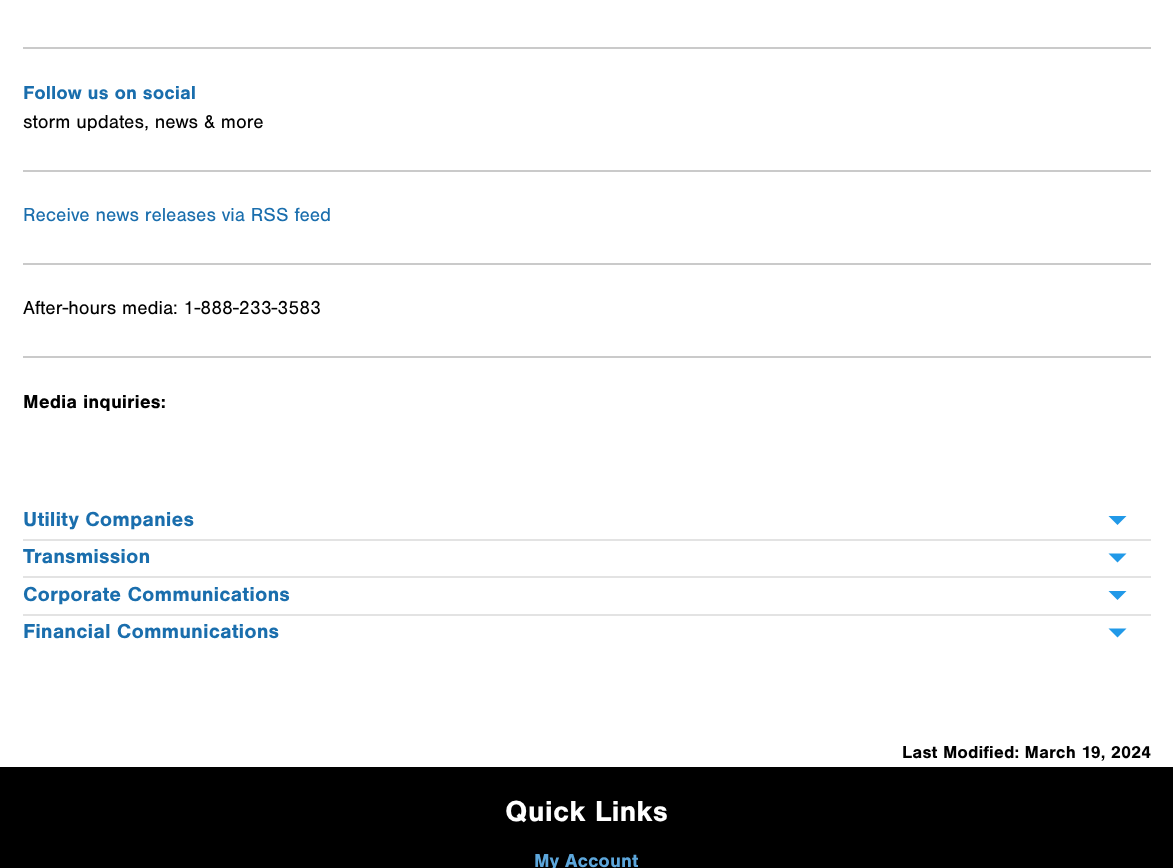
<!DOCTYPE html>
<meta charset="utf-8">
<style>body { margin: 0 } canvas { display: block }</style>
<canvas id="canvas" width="1173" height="868"></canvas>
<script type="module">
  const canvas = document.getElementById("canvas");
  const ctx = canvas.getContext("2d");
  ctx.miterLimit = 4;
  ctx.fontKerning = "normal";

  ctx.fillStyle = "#ffffff";
  ctx.fillRect(0, 0, 1173, 868);
  ctx.fillStyle = "#cacaca";
  ctx.fillRect(23, 47, 1128, 2);
  ctx.font = "bold 19.5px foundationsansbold";
  ctx.fillStyle = "#1a6ead";
  ctx.fillText("Follow us on social", 23, 99);
  ctx.font = "19.5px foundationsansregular";
  ctx.fillStyle = "#000000";
  ctx.fillText("storm updates, news & more", 23, 128);
  ctx.fillStyle = "#cacaca";
  ctx.fillRect(23, 170, 1128, 2);
  ctx.fillStyle = "#1a6ead";
  ctx.fillText("Receive news releases via RSS feed", 23, 221);
  ctx.fillStyle = "#cacaca";
  ctx.fillRect(23, 263, 1128, 2);
  ctx.fillStyle = "#000000";
  ctx.fillText("After-hours media: 1-888-233-3583", 23, 314);
  ctx.fillStyle = "#cacaca";
  ctx.fillRect(23, 356, 1128, 2);
  ctx.font = "bold 19.5px foundationsansbold";
  ctx.fillStyle = "#000000";
  ctx.fillText("Media inquiries:", 23, 408);
  ctx.fillStyle = "#e3e3e3";
  ctx.fillRect(23, 539, 1128, 2);
  ctx.font = "bold 21px foundationsansbold";
  ctx.fillStyle = "#1a6ead";
  ctx.fillText("Utility Companies", 23, 526);
  ctx.fillStyle = "#2199e8";
  ctx.beginPath();
  ctx.moveTo(1108.5, 516);
  ctx.lineTo(1126.5, 516);
  ctx.lineTo(1117.5, 525);
  ctx.closePath();
  ctx.fill();
  ctx.fillStyle = "#e3e3e3";
  ctx.fillRect(23, 576, 1128, 2);
  ctx.fillStyle = "#1a6ead";
  ctx.fillText("Transmission", 23, 563);
  ctx.fillStyle = "#2199e8";
  ctx.beginPath();
  ctx.moveTo(1108.5, 553.5);
  ctx.lineTo(1126.5, 553.5);
  ctx.lineTo(1117.5, 562.5);
  ctx.closePath();
  ctx.fill();
  ctx.fillStyle = "#e3e3e3";
  ctx.fillRect(23, 614, 1128, 2);
  ctx.fillStyle = "#1a6ead";
  ctx.fillText("Corporate Communications", 23, 601);
  ctx.fillStyle = "#2199e8";
  ctx.beginPath();
  ctx.moveTo(1108.5, 591);
  ctx.lineTo(1126.5, 591);
  ctx.lineTo(1117.5, 600);
  ctx.closePath();
  ctx.fill();
  ctx.fillStyle = "#1a6ead";
  ctx.fillText("Financial Communications", 23, 638);
  ctx.fillStyle = "#2199e8";
  ctx.beginPath();
  ctx.moveTo(1108.5, 628.5);
  ctx.lineTo(1126.5, 628.5);
  ctx.lineTo(1117.5, 637.5);
  ctx.closePath();
  ctx.fill();
  ctx.font = "bold 18px foundationsansbold";
  ctx.fillStyle = "#000000";
  ctx.fillText("Last Modified: March 19, 2024", 902, 758);
  ctx.fillRect(0, 767, 1173, 101);
  ctx.font = "bold 30px foundationsansbold";
  ctx.fillStyle = "#ffffff";
  ctx.fillText("Quick Links", 505, 821);
  ctx.font = "bold 19.5px foundationsansbold";
  ctx.fillStyle = "#5da7dc";
  ctx.fillText("My Account", 534, 867);
</script>
